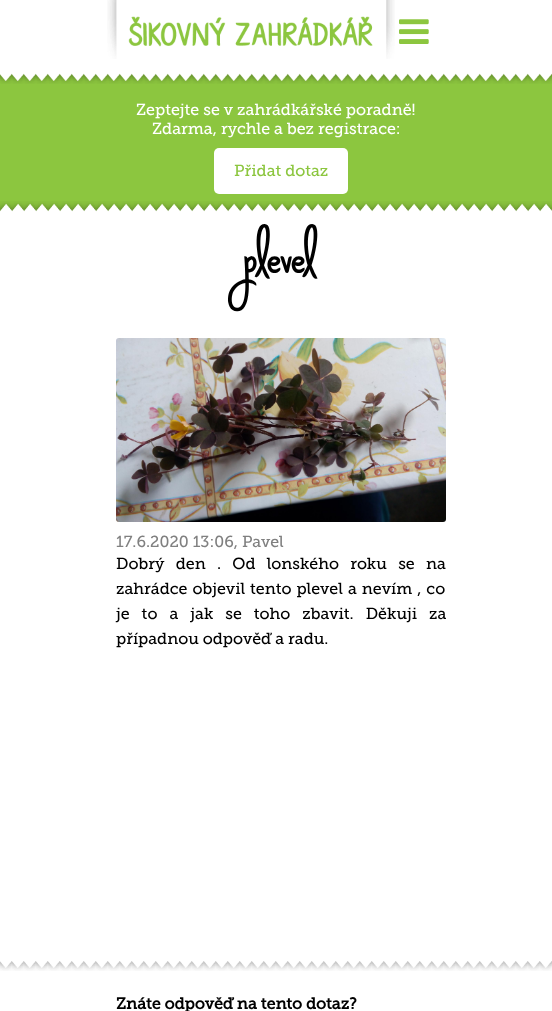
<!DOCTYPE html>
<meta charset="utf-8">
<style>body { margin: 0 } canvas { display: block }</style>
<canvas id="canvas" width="552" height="1011"></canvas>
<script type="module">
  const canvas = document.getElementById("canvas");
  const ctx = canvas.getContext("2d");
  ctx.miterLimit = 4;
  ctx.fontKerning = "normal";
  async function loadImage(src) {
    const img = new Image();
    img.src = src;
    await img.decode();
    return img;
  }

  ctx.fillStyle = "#ffffff";
  ctx.fillRect(0, 0, 552, 1011);
  ctx.fillStyle = "#8cc63f";
  ctx.fillRect(0, 73, 552, 139);
  ctx.drawImage(await loadImage("img1.png"), 0, 4, 552, 80);
  ctx.drawImage(await loadImage("img4.png"), 0, 0, 552, 4);
  ctx.drawImage(await loadImage("img2.png"), 107, 0, 288, 59);
  ctx.drawImage(await loadImage("img3.png"), 399, 19, 30, 25);
  ctx.font = "16px Museo Slab";
  ctx.fillStyle = "#ffffff";
  ctx.fillText("Zeptejte se v zahrádkářské poradně!", 136, 115);
  ctx.fillText("Zdarma, rychle a bez registrace:", 152, 134);
  ctx.beginPath();
  ctx.roundRect(214, 148, 134, 46, 5);
  ctx.fill();
  ctx.fillStyle = "#8cc63f";
  ctx.fillText("Přidat dotaz", 234, 176);
  ctx.drawImage(await loadImage("img5.png"), 0, 201, 552, 12);
  ctx.font = "bold 40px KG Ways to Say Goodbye";
  ctx.fillStyle = "#000000";
  ctx.fillText("plevel", 244, 273);
  ctx.drawImage(await loadImage("img6.png"), 116, 338, 330, 184);
  ctx.font = "16px Museo Slab";
  ctx.fillStyle = "#808080";
  ctx.fillText("17.6.2020 13:06, Pavel", 116, 547);
  ctx.wordSpacing = "7.25px";
  ctx.fillStyle = "#000000";
  ctx.fillText("Dobrý den . Od lonského roku se na", 116, 569);
  ctx.wordSpacing = "1px";
  ctx.fillText("zahrádce objevil tento plevel a nevím , co", 116, 594);
  ctx.wordSpacing = "8px";
  ctx.fillText("je to a jak se toho zbavit. Děkuji za", 116, 619);
  ctx.wordSpacing = "0px";
  ctx.fillText("případnou odpověď a radu.", 116, 644);
  ctx.drawImage(await loadImage("img7.png"), 0, 961, 552, 10);
  ctx.font = "bold 16px Museo Slab";
  ctx.fillText("Znáte odpověď na tento dotaz?", 116, 1009);
</script>
